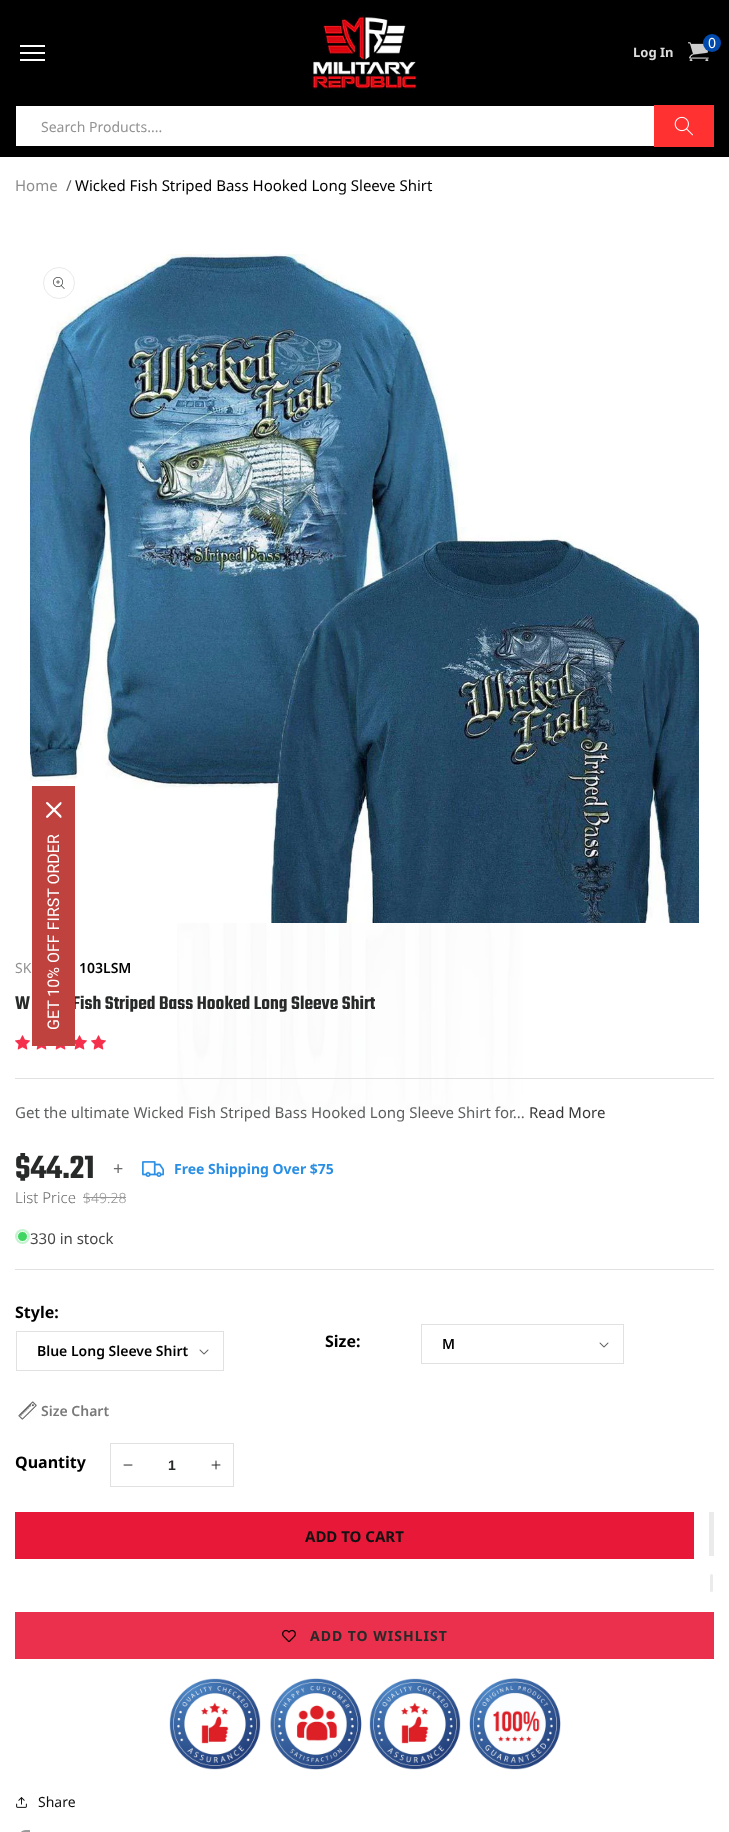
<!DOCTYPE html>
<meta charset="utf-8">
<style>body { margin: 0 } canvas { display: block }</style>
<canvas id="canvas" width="729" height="1832"></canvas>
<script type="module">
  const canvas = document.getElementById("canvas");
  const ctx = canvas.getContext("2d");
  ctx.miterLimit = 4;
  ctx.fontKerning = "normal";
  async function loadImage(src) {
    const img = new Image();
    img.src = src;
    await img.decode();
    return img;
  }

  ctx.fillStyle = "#ffffff";
  ctx.fillRect(0, 0, 729, 1832);
  ctx.fillStyle = "#000000";
  ctx.fillRect(0, 0, 729, 157);
  ctx.drawImage(await loadImage("img1.png"), 309, 12, 110, 81);
  ctx.fillStyle = "#ffffff";
  ctx.fillRect(20, 45, 25, 2);
  ctx.fillRect(20, 52, 25, 2);
  ctx.fillRect(20, 59, 25, 2);
  ctx.drawImage(await loadImage("img2.png"), 688, 42, 21, 19);
  ctx.fillStyle = "#004aad";
  ctx.beginPath();
  ctx.arc(712, 43, 9, 0, Math.PI * 2);
  ctx.fill();
  ctx.font = "14px Noto Sans";
  ctx.fillStyle = "#ffffff";
  ctx.fillText("0", 708, 48);
  ctx.font = "bold 13px Noto Sans";
  ctx.fillStyle = "#dddddd";
  ctx.fillText("Log In", 633, 57);
  ctx.fillStyle = "#ffffff";
  ctx.fillRect(16, 106, 638, 40);
  ctx.font = "14px Noto Sans";
  ctx.fillStyle = "#939393";
  ctx.fillText("Search Products....", 41, 132);
  ctx.fillStyle = "#ff3131";
  ctx.fillRect(654, 105, 60, 42);
  ctx.drawImage(await loadImage("img3.png"), 674, 116, 19, 20);
  ctx.font = "15px Noto Sans";
  ctx.fillStyle = "#8d8d8d";
  ctx.fillText("Home", 15, 191);
  ctx.fillStyle = "#5e5f5f";
  ctx.fillText("/", 66, 191);
  ctx.fillStyle = "#000000";
  ctx.fillText("Wicked Fish Striped Bass Hooked Long Sleeve Shirt", 75, 191);
  ctx.drawImage(await loadImage("img6.png"), 30, 254, 669, 669);
  ctx.drawImage(await loadImage("img5.png"), 177, 923, 346, 191);
  ctx.font = "600 20px Teko";
  ctx.fillStyle = "#282929";
  ctx.fillText("Fish Striped Bass Hooked Long Sleeve Shirt", 72, 1009);
  ctx.drawImage(await loadImage("img10.png"), 74, 1035, 13, 15);
  ctx.fillStyle = "#c0423f";
  ctx.fillRect(32, 786, 43, 260);
  ctx.drawImage(await loadImage("img4.png"), 46, 802, 16, 16);
  ctx.font = "16px Roboto";
  ctx.fillStyle = "#ffffff";
  ctx.save();
  ctx.translate(59, 1030);
  ctx.rotate(-90 * Math.PI / 180);
  ctx.fillText("GET 10% OFF FIRST ORDER", 0, 0);
  ctx.restore();
  ctx.beginPath();
  ctx.arc(59, 283, 15.5, 0, Math.PI * 2);
  ctx.strokeStyle = "#eaeaea";
  ctx.stroke();
  ctx.drawImage(await loadImage("img7.png"), 53, 277, 12, 12);
  ctx.font = "14px Noto Sans";
  ctx.fillStyle = "#939393";
  ctx.fillText("SK", 15, 973);
  ctx.font = "600 14px Noto Sans";
  ctx.fillStyle = "#000000";
  ctx.fillText("103LSM", 79, 973);
  ctx.font = "600 20px Teko";
  ctx.fillStyle = "#282929";
  ctx.fillText("W", 15, 1009);
  ctx.drawImage(await loadImage("img8.png"), 15, 1035, 15, 15);
  ctx.drawImage(await loadImage("img9.png"), 36, 1046, 11, 4);
  ctx.drawImage(await loadImage("img9.png"), 55, 1046, 11, 4);
  ctx.drawImage(await loadImage("img8.png"), 91, 1035, 15, 15);
  ctx.fillStyle = "#e1e1e1";
  ctx.fillRect(15, 1078, 699, 1);
  ctx.font = "15px Noto Sans";
  ctx.fillStyle = "#5e5f5f";
  ctx.fillText("Get the ultimate Wicked Fish Striped Bass Hooked Long Sleeve Shirt for...", 15, 1118);
  ctx.fillStyle = "#363636";
  ctx.fillText("Read More", 529, 1118);
  ctx.font = "600 35px Teko";
  ctx.fillStyle = "#282929";
  ctx.fillText("$44.21", 15, 1178);
  ctx.letterSpacing = "1px";
  ctx.font = "18px Noto Sans";
  ctx.fillStyle = "#6b6b6b";
  ctx.fillText("+", 113, 1175);
  ctx.drawImage(await loadImage("img11.png"), 142, 1161, 22, 16);
  ctx.letterSpacing = "0px";
  ctx.font = "bold 14px Noto Sans";
  ctx.fillStyle = "#2a8fe4";
  ctx.fillText("Free Shipping Over $75", 174, 1174);
  ctx.font = "300 15px Noto Sans";
  ctx.fillStyle = "#6b6b6b";
  ctx.fillText("List Price", 15, 1203);
  ctx.font = "300 14px Noto Sans";
  ctx.fillStyle = "#939393";
  ctx.fillText("$49.28", 83, 1203);
  ctx.fillRect(83, 1197, 43, 1);
  ctx.fillStyle = "#c5f3cf";
  ctx.beginPath();
  ctx.arc(22.5, 1236.5, 7.5, 0, Math.PI * 2);
  ctx.fill();
  ctx.fillStyle = "#3ed660";
  ctx.beginPath();
  ctx.arc(22.5, 1236.5, 5, 0, Math.PI * 2);
  ctx.fill();
  ctx.strokeStyle = "#ffffff";
  ctx.stroke();
  ctx.font = "15px Noto Sans";
  ctx.fillStyle = "#464646";
  ctx.fillText("330 in stock", 30, 1244);
  ctx.fillStyle = "#e1e1e1";
  ctx.fillRect(15, 1269, 699, 1);
  ctx.font = "bold 16px Noto Sans";
  ctx.fillStyle = "#000000";
  ctx.fillText("Style:", 15, 1318);
  ctx.strokeStyle = "#e1e1e1";
  ctx.strokeRect(16.5, 1331.5, 207, 39);
  ctx.font = "600 14px Noto Sans";
  ctx.fillText("Blue Long Sleeve Shirt", 37, 1356);
  ctx.drawImage(await loadImage("img12.png"), 199, 1349, 10, 6);
  ctx.font = "bold 16px Noto Sans";
  ctx.fillText("Size:", 325, 1347);
  ctx.strokeRect(421.5, 1324.5, 202, 39);
  ctx.font = "600 14px Noto Sans";
  ctx.fillText("M", 442, 1349);
  ctx.drawImage(await loadImage("img12.png"), 599, 1342, 10, 6);
  ctx.drawImage(await loadImage("img13.png"), 18, 1401, 19, 19);
  ctx.fillStyle = "#797979";
  ctx.fillText("Size Chart", 41, 1416);
  ctx.font = "bold 16px Noto Sans";
  ctx.fillStyle = "#000000";
  ctx.fillText("Quantity", 15, 1468);
  ctx.strokeRect(110.5, 1443.5, 123, 43);
  ctx.drawImage(await loadImage("img14.png"), 123, 1464, 10, 2);
  ctx.font = "bold 14px Liberation Sans";
  ctx.fillStyle = "#282929";
  ctx.fillText("1", 168, 1470);
  ctx.drawImage(await loadImage("img15.png"), 211, 1460, 10, 10);
  ctx.fillStyle = "#e81938";
  ctx.fillRect(15, 1512, 679, 47);
  ctx.font = "bold 15px Noto Sans";
  ctx.fillStyle = "#121212";
  ctx.fillText("ADD TO CART", 305, 1542);
  ctx.fillStyle = "#ebebeb";
  ctx.fillRect(709, 1512, 5, 44);
  ctx.beginPath();
  ctx.roundRect(710, 1574, 3, 18, 1.5);
  ctx.fill();
  ctx.fillStyle = "#ea304c";
  ctx.fillRect(15, 1612, 699, 47);
  ctx.drawImage(await loadImage("img16.png"), 282, 1629, 14, 14);
  ctx.letterSpacing = "1px";
  ctx.font = "bold 14px Noto Sans";
  ctx.fillStyle = "#282929";
  ctx.fillText("ADD TO WISHLIST", 310, 1641);
  ctx.drawImage(await loadImage("img17.png"), 169, 1678, 92, 92);
  ctx.drawImage(await loadImage("img18.png"), 270, 1678, 92, 92);
  ctx.drawImage(await loadImage("img17.png"), 369, 1678, 92, 92);
  ctx.drawImage(await loadImage("img19.png"), 469, 1678, 92, 92);
  ctx.drawImage(await loadImage("img20.png"), 16, 1797, 11, 11);
  ctx.letterSpacing = "0px";
  ctx.font = "14px Noto Sans";
  ctx.fillStyle = "#121212";
  ctx.fillText("Share", 38, 1807);
  ctx.drawImage(await loadImage("img21.png"), 21, 1830, 9, 2);
</script>
